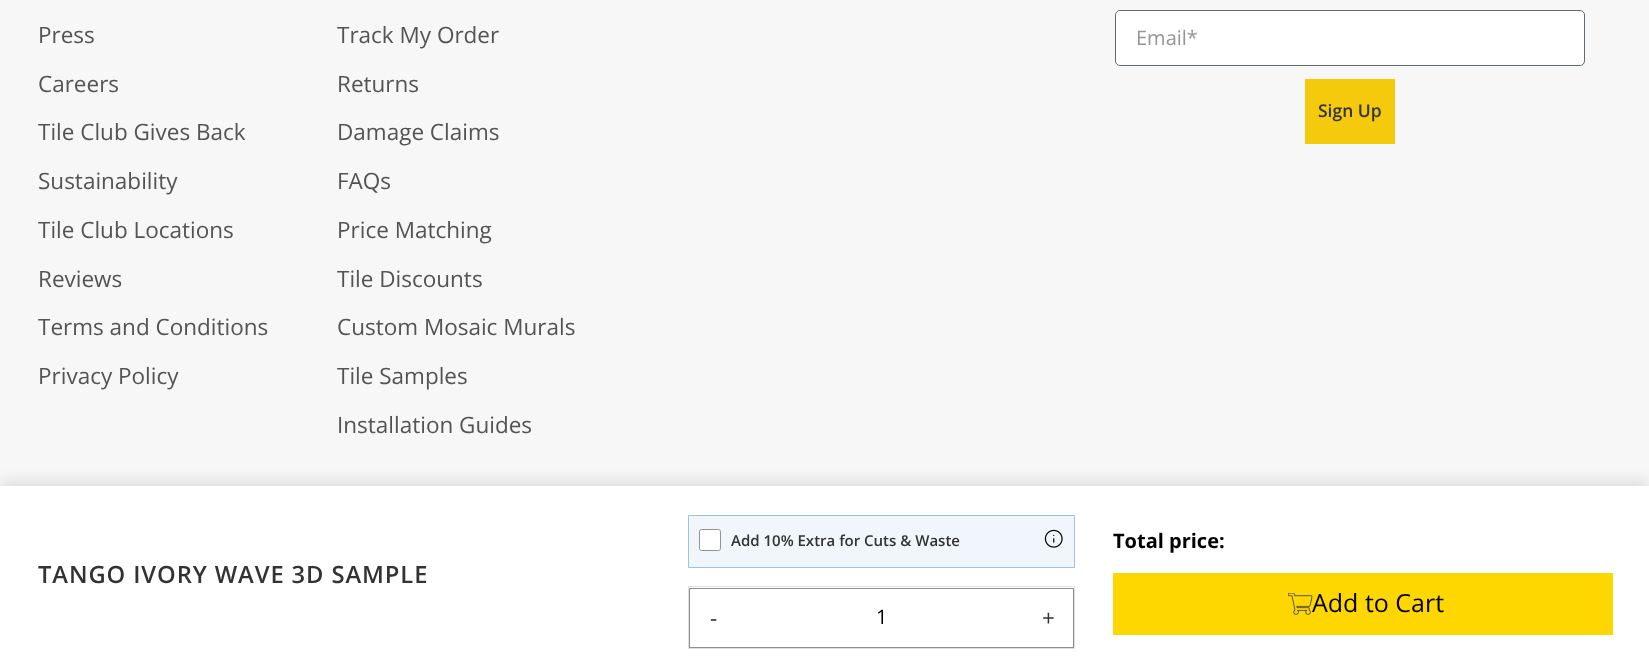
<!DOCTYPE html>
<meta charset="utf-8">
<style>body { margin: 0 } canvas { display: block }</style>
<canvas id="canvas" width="1649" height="669"></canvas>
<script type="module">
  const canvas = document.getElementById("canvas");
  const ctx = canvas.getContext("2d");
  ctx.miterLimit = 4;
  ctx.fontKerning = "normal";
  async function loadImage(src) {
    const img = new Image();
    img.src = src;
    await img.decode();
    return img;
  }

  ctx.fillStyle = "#f7f7f7";
  ctx.fillRect(0, 0, 1649, 669);
  ctx.font = "22.5px Open Sans";
  ctx.fillStyle = "#545454";
  ctx.fillText("Press", 38, 43);
  ctx.fillText("Careers", 38, 92);
  ctx.fillText("Tile Club Gives Back", 38, 140);
  ctx.fillText("Sustainability", 38, 189);
  ctx.fillText("Tile Club Locations", 38, 238);
  ctx.fillText("Reviews", 38, 287);
  ctx.fillText("Terms and Conditions", 38, 335);
  ctx.fillText("Privacy Policy", 38, 384);
  ctx.fillText("Track My Order", 337, 43);
  ctx.fillText("Returns", 337, 92);
  ctx.fillText("Damage Claims", 337, 140);
  ctx.fillText("FAQs", 337, 189);
  ctx.fillText("Price Matching", 337, 238);
  ctx.fillText("Tile Discounts", 337, 287);
  ctx.fillText("Custom Mosaic Murals", 337, 335);
  ctx.fillText("Tile Samples", 337, 384);
  ctx.fillText("Installation Guides", 337, 433);
  ctx.fillStyle = "#ffffff";
  ctx.beginPath();
  ctx.roundRect(1115.5, 10.5, 469, 55, 4.5);
  ctx.fill();
  ctx.strokeStyle = "#606a72";
  ctx.stroke();
  ctx.font = "20px Open Sans";
  ctx.fillStyle = "#949596";
  ctx.fillText("Email*", 1136, 45);
  ctx.fillStyle = "#f5c90c";
  ctx.fillRect(1305, 79, 90, 65);
  ctx.font = "600 17.5px Open Sans";
  ctx.fillStyle = "#333333";
  ctx.fillText("Sign Up", 1318, 117);
  ctx.fillStyle = "rgba(0, 0, 0, 0.1)";
  ctx.filter = "blur(7.5px)";
  ctx.beginPath();
  ctx.rect(0, 481, 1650, 184);
  ctx.fill();
  ctx.filter = "none";
  ctx.fillStyle = "#ffffff";
  ctx.fillRect(0, 486, 1649, 183);
  ctx.save();
  ctx.beginPath();
  ctx.rect(38, 560, 587, 30);
  ctx.clip();
  ctx.letterSpacing = "0.9px";
  ctx.font = "600 23.75px Open Sans";
  ctx.fillStyle = "#333333";
  ctx.fillText("TANGO IVORY WAVE 3D SAMPLE", 38, 583);
  ctx.restore();
  ctx.fillStyle = "#f0f6fb";
  ctx.beginPath();
  ctx.rect(688.5, 515.5, 386, 52);
  ctx.fill();
  ctx.strokeStyle = "#9ec3e2";
  ctx.stroke();
  ctx.fillStyle = "#ffffff";
  ctx.beginPath();
  ctx.roundRect(699.5, 529.5, 21, 21, 2);
  ctx.fill();
  ctx.strokeStyle = "#939393";
  ctx.stroke();
  ctx.font = "600 15px Open Sans";
  ctx.fillStyle = "#333333";
  ctx.fillText("Add 10% Extra for Cuts & Waste", 731, 546);
  ctx.drawImage(await loadImage("img1.png"), 1044, 529, 19, 19);
  ctx.strokeStyle = "#e0e0e0";
  ctx.strokeRect(688.5, 586.5, 386, 62);
  ctx.strokeStyle = "#8f8f8f";
  ctx.strokeRect(689.5, 588.5, 384, 59);
  ctx.font = "22.5px Open Sans";
  ctx.fillText("-", 710, 626);
  ctx.font = "20px Open Sans";
  ctx.fillStyle = "#000000";
  ctx.fillText("1", 876, 624);
  ctx.font = "22.5px Open Sans";
  ctx.fillStyle = "#333333";
  ctx.fillText("+", 1042, 626);
  ctx.font = "bold 20px Open Sans";
  ctx.fillStyle = "#000000";
  ctx.fillText("Total price:", 1113, 548);
  ctx.fillStyle = "#ffd700";
  ctx.fillRect(1113, 573, 500, 62);
  ctx.font = "25px Open Sans";
  ctx.fillStyle = "#000000";
  ctx.fillText("Add to Cart", 1312, 612);
  ctx.drawImage(await loadImage("img2.png"), 1288, 593, 25, 22);
</script>
